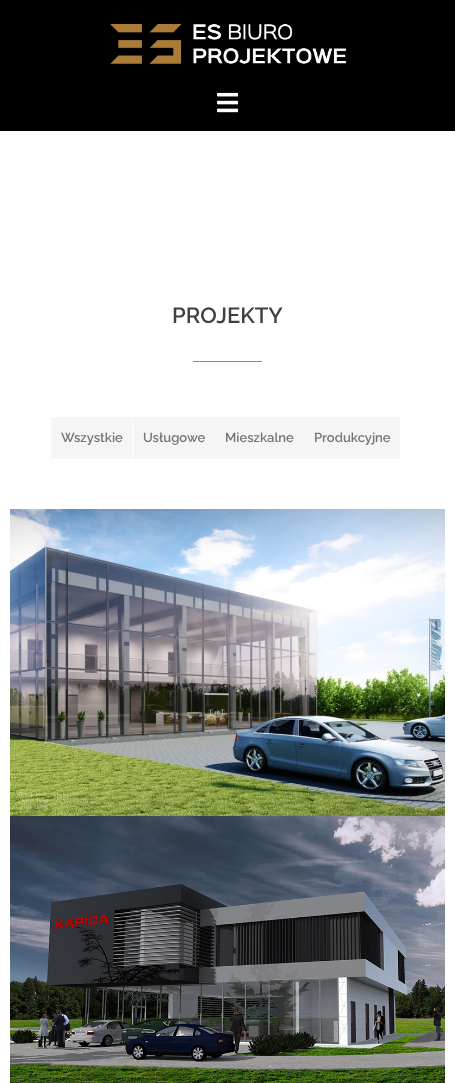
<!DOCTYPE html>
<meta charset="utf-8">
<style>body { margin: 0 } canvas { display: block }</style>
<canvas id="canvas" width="455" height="1083"></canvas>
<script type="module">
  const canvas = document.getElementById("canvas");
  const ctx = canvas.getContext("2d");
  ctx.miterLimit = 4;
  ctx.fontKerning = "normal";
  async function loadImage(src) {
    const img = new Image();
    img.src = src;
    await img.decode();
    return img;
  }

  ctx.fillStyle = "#ffffff";
  ctx.fillRect(0, 0, 455, 1083);
  ctx.fillStyle = "#000000";
  ctx.fillRect(0, 0, 455, 131);
  ctx.drawImage(await loadImage("img1.png"), 110, 24, 237, 40);
  ctx.drawImage(await loadImage("img2.png"), 217, 92, 21, 21);
  ctx.font = "600 22px Raleway";
  ctx.fillStyle = "#443f3f";
  ctx.fillText("PROJEKTY", 172, 323);
  ctx.fillStyle = "#ed6b21";
  ctx.fillRect(193, 361, 69, 1);
  ctx.fillStyle = "#f5f5f5";
  ctx.fillRect(51, 417, 81, 42);
  ctx.font = "600 13px Raleway";
  ctx.fillStyle = "#767676";
  ctx.fillText("Wszystkie", 61, 442);
  ctx.fillStyle = "#f5f5f5";
  ctx.fillRect(133, 417, 267, 42);
  ctx.fillStyle = "#767676";
  ctx.fillText("Usługowe", 143, 442);
  ctx.fillText("Mieszkalne", 225, 442);
  ctx.fillText("Produkcyjne", 314, 442);
  ctx.drawImage(await loadImage("img3.png"), 10, 509, 435, 307);
  ctx.drawImage(await loadImage("img4.png"), 10, 816, 435, 267);
</script>
